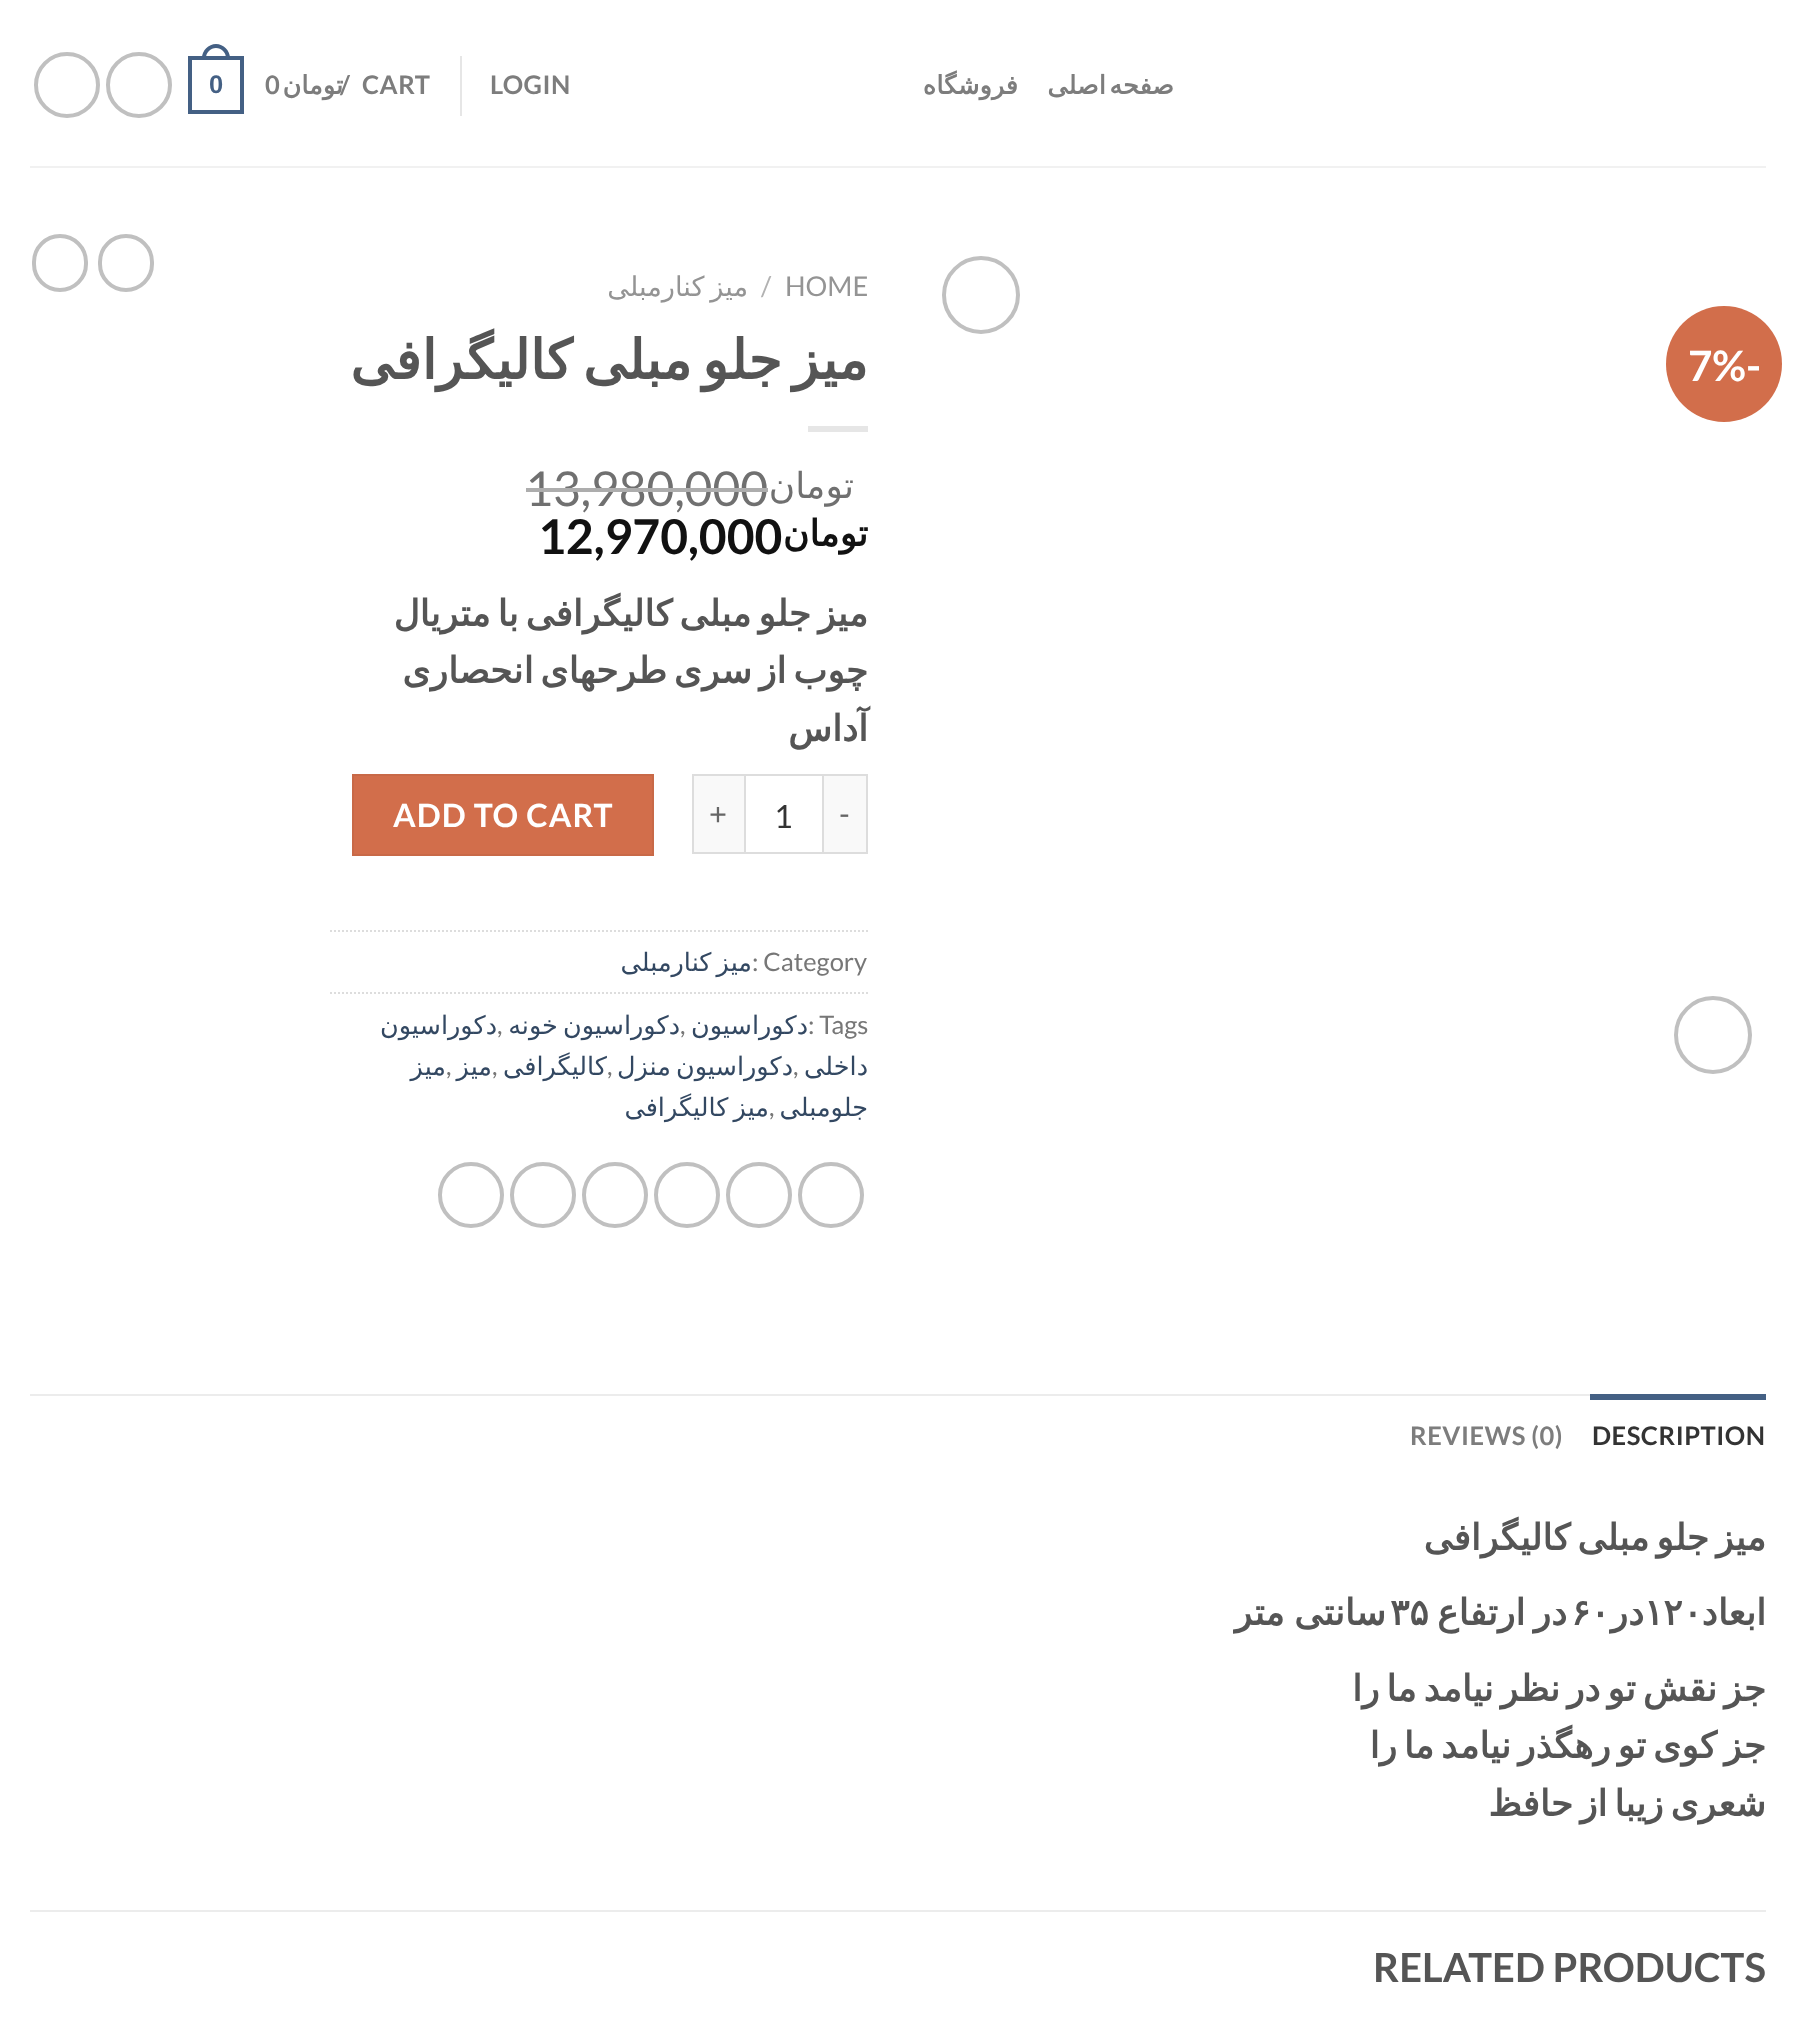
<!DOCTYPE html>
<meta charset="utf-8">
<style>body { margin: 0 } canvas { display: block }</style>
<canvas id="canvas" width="1796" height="2030"></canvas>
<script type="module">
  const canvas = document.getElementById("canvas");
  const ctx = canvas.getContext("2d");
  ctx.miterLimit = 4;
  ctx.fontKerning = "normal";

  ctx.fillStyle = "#ffffff";
  ctx.fillRect(0, 0, 1796, 2030);
  ctx.letterSpacing = "0.5px";
  ctx.wordSpacing = "-5px";
  ctx.direction = "rtl";
  ctx.font = "bold 25.5px DejaVu Sans";
  ctx.fillStyle = "#7d7d7d";
  ctx.fillText("صفحه اصلی", 1174, 94);
  ctx.wordSpacing = "0px";
  ctx.fillText("فروشگاه", 1018, 94);
  ctx.direction = "ltr";
  ctx.font = "bold 25.5px Lato";
  ctx.fillText("LOGIN", 490, 94);
  ctx.fillStyle = "#e6e6e6";
  ctx.fillRect(460, 56, 2, 60);
  ctx.fillStyle = "#7d7d7d";
  ctx.fillText("CART", 362, 94);
  ctx.fillText("/", 340, 94);
  ctx.direction = "rtl";
  ctx.font = "bold 25.5px DejaVu Sans";
  ctx.fillText("تومان", 343, 94);
  ctx.direction = "ltr";
  ctx.font = "bold 25.5px Lato";
  ctx.fillText("0", 265, 94);
  ctx.strokeStyle = "#446084";
  ctx.lineWidth = 4;
  ctx.strokeRect(190, 58, 52, 54);
  ctx.fillStyle = "#446084";
  ctx.beginPath();
  ctx.moveTo(216, 44);
  ctx.bezierCurveTo(223.5, 44, 230, 50.5, 230, 58);
  ctx.lineTo(230, 60);
  ctx.lineTo(202, 60);
  ctx.lineTo(202, 58);
  ctx.bezierCurveTo(202, 50.5, 208.5, 44, 216, 44);
  ctx.closePath();
  ctx.moveTo(216, 48);
  ctx.bezierCurveTo(221.5, 48, 226, 52.5, 226, 58);
  ctx.lineTo(226, 60);
  ctx.lineTo(206, 60);
  ctx.lineTo(206, 58);
  ctx.bezierCurveTo(206, 52.5, 210.5, 48, 216, 48);
  ctx.closePath();
  ctx.fill("evenodd");
  ctx.font = "bold 25.5px Liberation Sans";
  ctx.fillText("0", 209, 93);
  ctx.beginPath();
  ctx.arc(139, 85, 31, 0, Math.PI * 2);
  ctx.strokeStyle = "#c0c0c0";
  ctx.stroke();
  ctx.beginPath();
  ctx.arc(67, 85, 31, 0, Math.PI * 2);
  ctx.stroke();
  ctx.fillStyle = "#f1f1f1";
  ctx.fillRect(30, 166, 1736, 2);
  ctx.beginPath();
  ctx.roundRect(100, 236, 52, 54, 26);
  ctx.stroke();
  ctx.beginPath();
  ctx.roundRect(34, 236, 52, 54, 26);
  ctx.stroke();
  ctx.beginPath();
  ctx.arc(981, 295, 37, 0, Math.PI * 2);
  ctx.stroke();
  ctx.fillStyle = "#d26e4b";
  ctx.beginPath();
  ctx.arc(1724, 364, 58, 0, Math.PI * 2);
  ctx.fill();
  ctx.letterSpacing = "0px";
  ctx.font = "bold 42px Lato";
  ctx.fillStyle = "#ffffff";
  ctx.fillText("7%-", 1688, 381);
  ctx.beginPath();
  ctx.arc(1713, 1035, 37, 0, Math.PI * 2);
  ctx.stroke();
  ctx.font = "27.25px Lato";
  ctx.fillStyle = "#949494";
  ctx.fillText("HOME", 785, 296);
  ctx.fillStyle = "#b2b2b2";
  ctx.fillText("/", 761, 296);
  ctx.wordSpacing = "-3px";
  ctx.direction = "rtl";
  ctx.font = "27.25px DejaVu Sans";
  ctx.fillStyle = "#949494";
  ctx.fillText("میز کنارمبلی", 748, 296);
  ctx.wordSpacing = "-7px";
  ctx.font = "bold 54.5px DejaVu Sans";
  ctx.fillStyle = "#555555";
  ctx.fillText("میز جلو مبلی کالیگرافی", 868, 379);
  ctx.fillStyle = "#e6e6e6";
  ctx.fillRect(808, 426, 60, 6);
  ctx.wordSpacing = "0px";
  ctx.font = "36px DejaVu Sans";
  ctx.fillStyle = "#707070";
  ctx.fillText("تومان", 854, 498);
  ctx.direction = "ltr";
  ctx.font = "48px Lato";
  ctx.fillText("13,980,000", 525, 506);
  ctx.fillStyle = "#adadad";
  ctx.fillRect(526, 488, 242, 4);
  ctx.direction = "rtl";
  ctx.font = "bold 36px DejaVu Sans";
  ctx.fillStyle = "#111111";
  ctx.fillText("تومان", 868, 546);
  ctx.direction = "ltr";
  ctx.font = "bold 48px Lato";
  ctx.fillText("12,970,000", 538, 554);
  ctx.wordSpacing = "-4.5px";
  ctx.direction = "rtl";
  ctx.font = "bold 36px DejaVu Sans";
  ctx.fillStyle = "#555555";
  ctx.fillText("میز جلو مبلی کالیگرافی با متریال", 868, 626);
  ctx.fillText("چوب از سری طرحهای انحصاری", 868, 683);
  ctx.wordSpacing = "0px";
  ctx.fillText("آداس", 868, 741);
  ctx.fillStyle = "#f9f9f9";
  ctx.fillRect(824, 776, 42, 76);
  ctx.fillStyle = "#dddddd";
  ctx.fillRect(824, 774, 44, 2);
  ctx.fillRect(866, 774, 2, 80);
  ctx.fillRect(824, 852, 44, 2);
  ctx.letterSpacing = "1px";
  ctx.direction = "ltr";
  ctx.font = "31px Lato";
  ctx.fillStyle = "#666666";
  ctx.fillText("-", 839, 825);
  ctx.strokeStyle = "#dddddd";
  ctx.lineWidth = 2;
  ctx.strokeRect(745, 775, 78, 78);
  ctx.letterSpacing = "0px";
  ctx.font = "32px Lato";
  ctx.fillStyle = "#333333";
  ctx.fillText("1", 774, 828);
  ctx.fillStyle = "#f9f9f9";
  ctx.fillRect(694, 776, 50, 76);
  ctx.fillStyle = "#dddddd";
  ctx.fillRect(692, 774, 52, 2);
  ctx.fillRect(692, 852, 52, 2);
  ctx.fillRect(692, 774, 2, 80);
  ctx.letterSpacing = "1px";
  ctx.font = "31px Lato";
  ctx.fillStyle = "#666666";
  ctx.fillText("+", 709, 825);
  ctx.fillStyle = "#d26e4b";
  ctx.beginPath();
  ctx.rect(353, 775, 300, 80);
  ctx.fill();
  ctx.strokeStyle = "#c86947";
  ctx.stroke();
  ctx.font = "bold 32px Lato";
  ctx.fillStyle = "#ffffff";
  ctx.fillText("ADD TO CART", 393, 827);
  ctx.beginPath();
  ctx.moveTo(330, 931);
  ctx.lineTo(868, 931);
  ctx.strokeStyle = "#dddddd";
  ctx.setLineDash([2, 2]);
  ctx.stroke();
  ctx.letterSpacing = "0px";
  ctx.font = "25.5px Lato";
  ctx.fillStyle = "#777777";
  ctx.fillText(": Category", 752, 971);
  ctx.wordSpacing = "-3px";
  ctx.direction = "rtl";
  ctx.font = "25.5px DejaVu Sans";
  ctx.fillStyle = "#334862";
  ctx.fillText("میز کنارمبلی", 752, 971);
  ctx.beginPath();
  ctx.moveTo(330, 993);
  ctx.lineTo(868, 993);
  ctx.stroke();
  ctx.wordSpacing = "0px";
  ctx.direction = "ltr";
  ctx.font = "25.5px Lato";
  ctx.fillStyle = "#777777";
  ctx.fillText(": Tags", 808, 1034);
  ctx.direction = "rtl";
  ctx.font = "25.5px DejaVu Sans";
  ctx.fillStyle = "#334862";
  ctx.fillText("دکوراسیون", 808, 1034);
  ctx.direction = "ltr";
  ctx.font = "25.5px Lato";
  ctx.fillStyle = "#777777";
  ctx.fillText(",", 680, 1034);
  ctx.wordSpacing = "-3px";
  ctx.direction = "rtl";
  ctx.font = "25.5px DejaVu Sans";
  ctx.fillStyle = "#334862";
  ctx.fillText("دکوراسیون خونه", 680, 1034);
  ctx.wordSpacing = "0px";
  ctx.direction = "ltr";
  ctx.font = "25.5px Lato";
  ctx.fillStyle = "#777777";
  ctx.fillText(",", 497, 1034);
  ctx.direction = "rtl";
  ctx.font = "25.5px DejaVu Sans";
  ctx.fillStyle = "#334862";
  ctx.fillText("دکوراسیون", 497, 1034);
  ctx.fillText("داخلی", 868, 1075);
  ctx.direction = "ltr";
  ctx.font = "25.5px Lato";
  ctx.fillStyle = "#777777";
  ctx.fillText(",", 793, 1075);
  ctx.wordSpacing = "-3px";
  ctx.direction = "rtl";
  ctx.font = "25.5px DejaVu Sans";
  ctx.fillStyle = "#334862";
  ctx.fillText("دکوراسیون منزل", 793, 1075);
  ctx.wordSpacing = "0px";
  ctx.direction = "ltr";
  ctx.font = "25.5px Lato";
  ctx.fillStyle = "#777777";
  ctx.fillText(",", 607, 1075);
  ctx.direction = "rtl";
  ctx.font = "25.5px DejaVu Sans";
  ctx.fillStyle = "#334862";
  ctx.fillText("کالیگرافی", 607, 1075);
  ctx.direction = "ltr";
  ctx.font = "25.5px Lato";
  ctx.fillStyle = "#777777";
  ctx.fillText(",", 492, 1075);
  ctx.direction = "rtl";
  ctx.font = "25.5px DejaVu Sans";
  ctx.fillStyle = "#334862";
  ctx.fillText("میز", 492, 1075);
  ctx.direction = "ltr";
  ctx.font = "25.5px Lato";
  ctx.fillStyle = "#777777";
  ctx.fillText(",", 446, 1075);
  ctx.direction = "rtl";
  ctx.font = "25.5px DejaVu Sans";
  ctx.fillStyle = "#334862";
  ctx.fillText("میز", 446, 1075);
  ctx.fillText("جلومبلی", 868, 1116);
  ctx.direction = "ltr";
  ctx.font = "25.5px Lato";
  ctx.fillStyle = "#777777";
  ctx.fillText(",", 769, 1116);
  ctx.wordSpacing = "-3px";
  ctx.direction = "rtl";
  ctx.font = "25.5px DejaVu Sans";
  ctx.fillStyle = "#334862";
  ctx.fillText("میز کالیگرافی", 769, 1116);
  ctx.beginPath();
  ctx.arc(831, 1195, 31, 0, Math.PI * 2);
  ctx.strokeStyle = "#c0c0c0";
  ctx.lineWidth = 4;
  ctx.setLineDash([]);
  ctx.stroke();
  ctx.beginPath();
  ctx.arc(759, 1195, 31, 0, Math.PI * 2);
  ctx.stroke();
  ctx.beginPath();
  ctx.arc(687, 1195, 31, 0, Math.PI * 2);
  ctx.stroke();
  ctx.beginPath();
  ctx.arc(615, 1195, 31, 0, Math.PI * 2);
  ctx.stroke();
  ctx.beginPath();
  ctx.arc(543, 1195, 31, 0, Math.PI * 2);
  ctx.stroke();
  ctx.beginPath();
  ctx.arc(471, 1195, 31, 0, Math.PI * 2);
  ctx.stroke();
  ctx.fillStyle = "#ececec";
  ctx.fillRect(30, 1394, 1560, 2);
  ctx.fillStyle = "#446084";
  ctx.fillRect(1590, 1394, 176, 6);
  ctx.letterSpacing = "0.5px";
  ctx.wordSpacing = "0px";
  ctx.direction = "ltr";
  ctx.font = "bold 25.5px Lato";
  ctx.fillStyle = "#333333";
  ctx.fillText("DESCRIPTION", 1592, 1445);
  ctx.fillStyle = "#7d7d7d";
  ctx.fillText("REVIEWS (0)", 1410, 1445);
  ctx.letterSpacing = "0px";
  ctx.wordSpacing = "-4.5px";
  ctx.direction = "rtl";
  ctx.font = "bold 36px DejaVu Sans";
  ctx.fillStyle = "#555555";
  ctx.fillText("میز جلو مبلی کالیگرافی", 1766, 1550);
  ctx.wordSpacing = "0px";
  ctx.fillText("ابعاد", 1766, 1625);
  ctx.direction = "ltr";
  ctx.fillText("۱۲۰", 1644, 1625);
  ctx.direction = "rtl";
  ctx.fillText("در", 1644, 1625);
  ctx.direction = "ltr";
  ctx.fillText("۶۰", 1571, 1625);
  ctx.wordSpacing = "-3px";
  ctx.direction = "rtl";
  ctx.fillText("در ارتفاع", 1567, 1625);
  ctx.wordSpacing = "0px";
  ctx.direction = "ltr";
  ctx.fillText("۳۵", 1390, 1625);
  ctx.wordSpacing = "-2px";
  ctx.direction = "rtl";
  ctx.fillText("سانتی متر", 1386, 1625);
  ctx.wordSpacing = "-4.5px";
  ctx.fillText("جز نقش تو در نظر نیامد ما را", 1766, 1701);
  ctx.fillText("جز کوی تو رهگذر نیامد ما را", 1766, 1758);
  ctx.fillText("شعری زیبا از حافظ", 1766, 1816);
  ctx.fillStyle = "#ececec";
  ctx.fillRect(30, 1910, 1736, 2);
  ctx.wordSpacing = "0px";
  ctx.direction = "ltr";
  ctx.font = "bold 40px Lato";
  ctx.fillStyle = "#555555";
  ctx.fillText("RELATED PRODUCTS", 1373, 1982);
</script>
